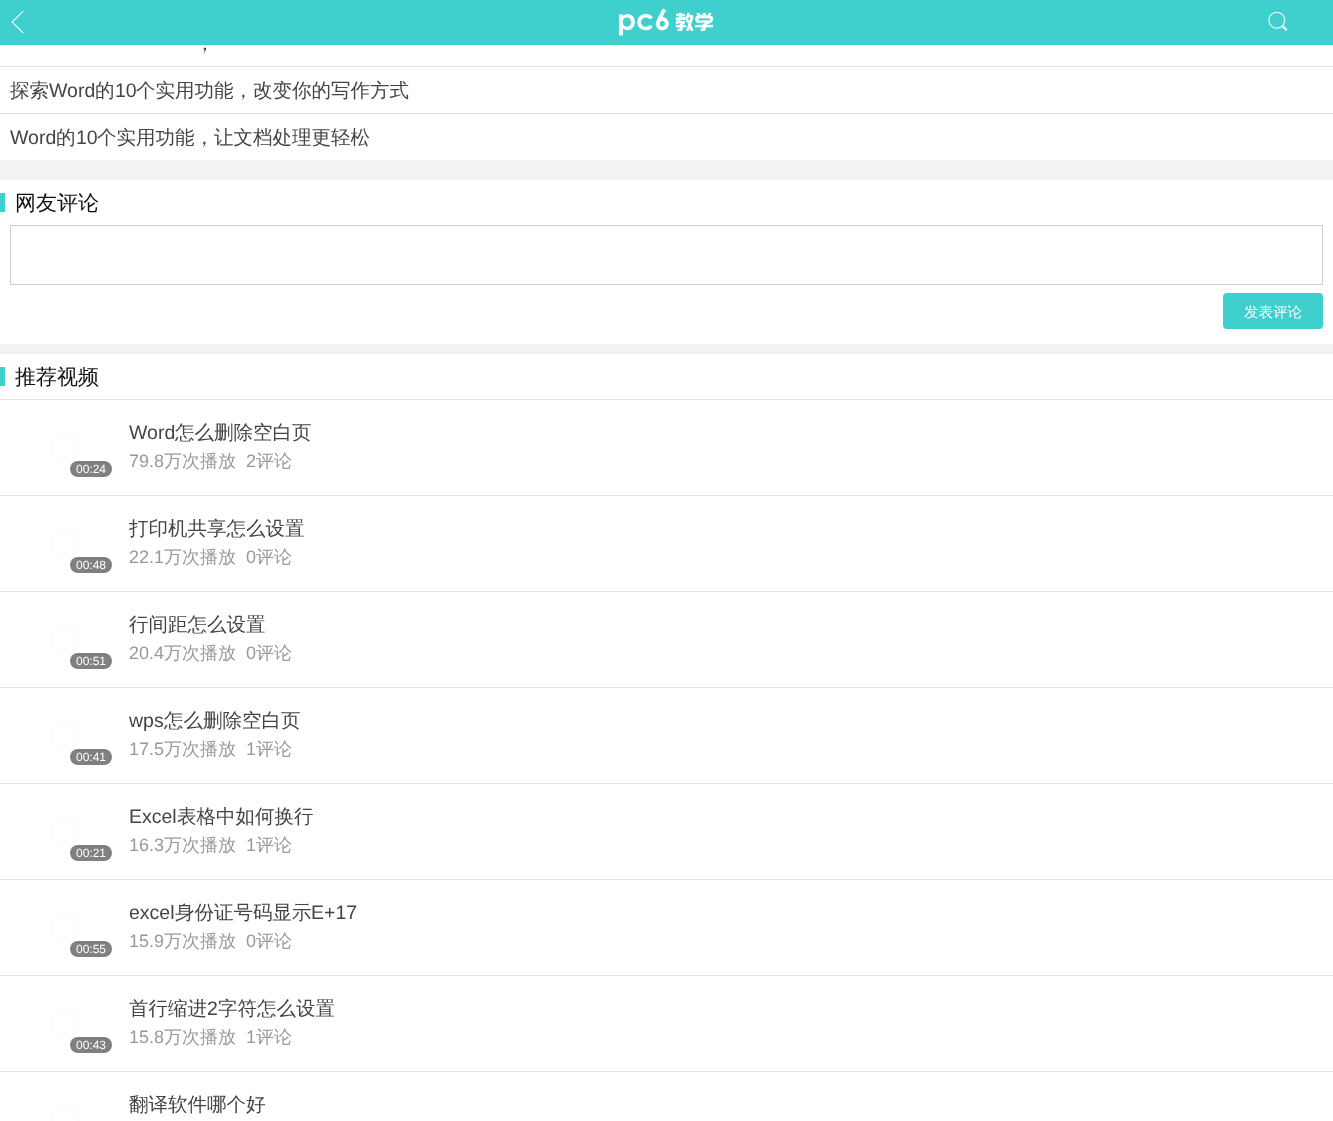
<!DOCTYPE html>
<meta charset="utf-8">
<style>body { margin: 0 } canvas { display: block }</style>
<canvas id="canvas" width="1333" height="1121"></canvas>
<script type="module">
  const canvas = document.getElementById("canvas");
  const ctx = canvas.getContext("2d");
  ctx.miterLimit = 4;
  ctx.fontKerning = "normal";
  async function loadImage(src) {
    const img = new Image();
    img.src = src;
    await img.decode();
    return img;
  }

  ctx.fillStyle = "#f2f2f2";
  ctx.fillRect(0, 0, 1333, 1121);
  ctx.fillStyle = "#3fd0ce";
  ctx.fillRect(0, 0, 1333, 45);
  ctx.fillStyle = "#ffffff";
  ctx.beginPath();
  ctx.moveTo(23, 33.5);
  ctx.lineTo(11.5, 22);
  ctx.lineTo(12.5, 21.5);
  ctx.lineTo(23.5, 32.5);
  ctx.closePath();
  ctx.fill();
  ctx.beginPath();
  ctx.moveTo(12.5, 22.5);
  ctx.lineTo(11.5, 22);
  ctx.lineTo(23, 10.5);
  ctx.lineTo(23.5, 11.5);
  ctx.closePath();
  ctx.fill();
  ctx.drawImage(await loadImage("img1.png"), 618, 8, 96, 28);
  ctx.drawImage(await loadImage("img2.png"), 1268, 11, 20, 20);
  ctx.fillRect(0, 45, 1333, 115);
  ctx.font = "500 19.5px WenQuanYi Zen Hei";
  ctx.fillStyle = "#444444";
  ctx.fillText("，", 195, 50);
  ctx.fillStyle = "#e3e3e3";
  ctx.fillRect(0, 66, 1333, 1);
  ctx.fillStyle = "#444444";
  ctx.fillText("探索", 10, 97);
  ctx.font = "19.5px Liberation Sans";
  ctx.fillText("Word", 49, 97);
  ctx.font = "500 19.5px WenQuanYi Zen Hei";
  ctx.fillText("的", 95, 97);
  ctx.font = "19.5px Liberation Sans";
  ctx.fillText("10", 115, 97);
  ctx.font = "500 19.5px WenQuanYi Zen Hei";
  ctx.fillText("个实用功能，改变你的写作方式", 136, 97);
  ctx.fillStyle = "#e3e3e3";
  ctx.fillRect(0, 113, 1333, 1);
  ctx.font = "19.5px Liberation Sans";
  ctx.fillStyle = "#444444";
  ctx.fillText("Word", 10, 144);
  ctx.font = "500 19.5px WenQuanYi Zen Hei";
  ctx.fillText("的", 56, 144);
  ctx.font = "19.5px Liberation Sans";
  ctx.fillText("10", 76, 144);
  ctx.font = "500 19.5px WenQuanYi Zen Hei";
  ctx.fillText("个实用功能，让文档处理更轻松", 97, 144);
  ctx.fillStyle = "#ffffff";
  ctx.fillRect(0, 180, 1333, 164);
  ctx.fillStyle = "#3fd0ce";
  ctx.fillRect(0, 193, 5, 19);
  ctx.font = "500 21px WenQuanYi Zen Hei";
  ctx.fillStyle = "#111111";
  ctx.fillText("网友评论", 15, 210);
  ctx.strokeStyle = "#cccccc";
  ctx.strokeRect(10.5, 225.5, 1312, 59);
  ctx.fillStyle = "#3fd0ce";
  ctx.beginPath();
  ctx.roundRect(1223, 293, 100, 36, 4);
  ctx.fill();
  ctx.font = "500 14.5px WenQuanYi Zen Hei";
  ctx.fillStyle = "#ffffff";
  ctx.fillText("发表评论", 1244, 317);
  ctx.fillRect(0, 354, 1333, 767);
  ctx.fillStyle = "#3fd0ce";
  ctx.fillRect(0, 367, 5, 19);
  ctx.font = "500 21px WenQuanYi Zen Hei";
  ctx.fillStyle = "#111111";
  ctx.fillText("推荐视频", 15, 384);
  ctx.fillStyle = "#e3e3e3";
  ctx.fillRect(0, 399, 1333, 1);
  ctx.drawImage(await loadImage("img3.png"), 51, 434, 28, 28);
  ctx.fillStyle = "#808080";
  ctx.beginPath();
  ctx.roundRect(70, 461, 42, 16, 8);
  ctx.fill();
  ctx.font = "12px Liberation Sans";
  ctx.fillStyle = "#ffffff";
  ctx.fillText("00:24", 76, 473);
  ctx.font = "19.5px Liberation Sans";
  ctx.fillStyle = "#444444";
  ctx.fillText("Word", 129, 439);
  ctx.font = "500 19.5px WenQuanYi Zen Hei";
  ctx.fillText("怎么删除空白页", 175, 439);
  ctx.font = "18px Liberation Sans";
  ctx.fillStyle = "#999999";
  ctx.fillText("79.8", 129, 467);
  ctx.font = "500 18px WenQuanYi Zen Hei";
  ctx.fillText("万次播放", 164, 467);
  ctx.font = "18px Liberation Sans";
  ctx.fillText("2", 246, 467);
  ctx.font = "500 18px WenQuanYi Zen Hei";
  ctx.fillText("评论", 256, 467);
  ctx.fillStyle = "#e3e3e3";
  ctx.fillRect(0, 495, 1333, 1);
  ctx.drawImage(await loadImage("img3.png"), 51, 530, 28, 28);
  ctx.fillStyle = "#808080";
  ctx.beginPath();
  ctx.roundRect(70, 557, 42, 16, 8);
  ctx.fill();
  ctx.font = "12px Liberation Sans";
  ctx.fillStyle = "#ffffff";
  ctx.fillText("00:48", 76, 569);
  ctx.font = "500 19.5px WenQuanYi Zen Hei";
  ctx.fillStyle = "#444444";
  ctx.fillText("打印机共享怎么设置", 129, 535);
  ctx.font = "18px Liberation Sans";
  ctx.fillStyle = "#999999";
  ctx.fillText("22.1", 129, 563);
  ctx.font = "500 18px WenQuanYi Zen Hei";
  ctx.fillText("万次播放", 164, 563);
  ctx.font = "18px Liberation Sans";
  ctx.fillText("0", 246, 563);
  ctx.font = "500 18px WenQuanYi Zen Hei";
  ctx.fillText("评论", 256, 563);
  ctx.fillStyle = "#e3e3e3";
  ctx.fillRect(0, 591, 1333, 1);
  ctx.drawImage(await loadImage("img3.png"), 51, 626, 28, 28);
  ctx.fillStyle = "#808080";
  ctx.beginPath();
  ctx.roundRect(70, 653, 42, 16, 8);
  ctx.fill();
  ctx.font = "12px Liberation Sans";
  ctx.fillStyle = "#ffffff";
  ctx.fillText("00:51", 76, 665);
  ctx.font = "500 19.5px WenQuanYi Zen Hei";
  ctx.fillStyle = "#444444";
  ctx.fillText("行间距怎么设置", 129, 631);
  ctx.font = "18px Liberation Sans";
  ctx.fillStyle = "#999999";
  ctx.fillText("20.4", 129, 659);
  ctx.font = "500 18px WenQuanYi Zen Hei";
  ctx.fillText("万次播放", 164, 659);
  ctx.font = "18px Liberation Sans";
  ctx.fillText("0", 246, 659);
  ctx.font = "500 18px WenQuanYi Zen Hei";
  ctx.fillText("评论", 256, 659);
  ctx.fillStyle = "#e3e3e3";
  ctx.fillRect(0, 687, 1333, 1);
  ctx.drawImage(await loadImage("img3.png"), 51, 722, 28, 28);
  ctx.fillStyle = "#808080";
  ctx.beginPath();
  ctx.roundRect(70, 749, 42, 16, 8);
  ctx.fill();
  ctx.font = "12px Liberation Sans";
  ctx.fillStyle = "#ffffff";
  ctx.fillText("00:41", 76, 761);
  ctx.font = "19.5px Liberation Sans";
  ctx.fillStyle = "#444444";
  ctx.fillText("wps", 129, 727);
  ctx.font = "500 19.5px WenQuanYi Zen Hei";
  ctx.fillText("怎么删除空白页", 164, 727);
  ctx.font = "18px Liberation Sans";
  ctx.fillStyle = "#999999";
  ctx.fillText("17.5", 129, 755);
  ctx.font = "500 18px WenQuanYi Zen Hei";
  ctx.fillText("万次播放", 164, 755);
  ctx.font = "18px Liberation Sans";
  ctx.fillText("1", 246, 755);
  ctx.font = "500 18px WenQuanYi Zen Hei";
  ctx.fillText("评论", 256, 755);
  ctx.fillStyle = "#e3e3e3";
  ctx.fillRect(0, 783, 1333, 1);
  ctx.drawImage(await loadImage("img3.png"), 51, 818, 28, 28);
  ctx.fillStyle = "#808080";
  ctx.beginPath();
  ctx.roundRect(70, 845, 42, 16, 8);
  ctx.fill();
  ctx.font = "12px Liberation Sans";
  ctx.fillStyle = "#ffffff";
  ctx.fillText("00:21", 76, 857);
  ctx.font = "19.5px Liberation Sans";
  ctx.fillStyle = "#444444";
  ctx.fillText("Excel", 129, 823);
  ctx.font = "500 19.5px WenQuanYi Zen Hei";
  ctx.fillText("表格中如何换行", 177, 823);
  ctx.font = "18px Liberation Sans";
  ctx.fillStyle = "#999999";
  ctx.fillText("16.3", 129, 851);
  ctx.font = "500 18px WenQuanYi Zen Hei";
  ctx.fillText("万次播放", 164, 851);
  ctx.font = "18px Liberation Sans";
  ctx.fillText("1", 246, 851);
  ctx.font = "500 18px WenQuanYi Zen Hei";
  ctx.fillText("评论", 256, 851);
  ctx.fillStyle = "#e3e3e3";
  ctx.fillRect(0, 879, 1333, 1);
  ctx.drawImage(await loadImage("img3.png"), 51, 914, 28, 28);
  ctx.fillStyle = "#808080";
  ctx.beginPath();
  ctx.roundRect(70, 941, 42, 16, 8);
  ctx.fill();
  ctx.font = "12px Liberation Sans";
  ctx.fillStyle = "#ffffff";
  ctx.fillText("00:55", 76, 953);
  ctx.font = "19.5px Liberation Sans";
  ctx.fillStyle = "#444444";
  ctx.fillText("excel", 129, 919);
  ctx.font = "500 19.5px WenQuanYi Zen Hei";
  ctx.fillText("身份证号码显示", 175, 919);
  ctx.font = "19.5px Liberation Sans";
  ctx.fillText("E+17", 311, 919);
  ctx.font = "18px Liberation Sans";
  ctx.fillStyle = "#999999";
  ctx.fillText("15.9", 129, 947);
  ctx.font = "500 18px WenQuanYi Zen Hei";
  ctx.fillText("万次播放", 164, 947);
  ctx.font = "18px Liberation Sans";
  ctx.fillText("0", 246, 947);
  ctx.font = "500 18px WenQuanYi Zen Hei";
  ctx.fillText("评论", 256, 947);
  ctx.fillStyle = "#e3e3e3";
  ctx.fillRect(0, 975, 1333, 1);
  ctx.drawImage(await loadImage("img3.png"), 51, 1010, 28, 28);
  ctx.fillStyle = "#808080";
  ctx.beginPath();
  ctx.roundRect(70, 1037, 42, 16, 8);
  ctx.fill();
  ctx.font = "12px Liberation Sans";
  ctx.fillStyle = "#ffffff";
  ctx.fillText("00:43", 76, 1049);
  ctx.font = "500 19.5px WenQuanYi Zen Hei";
  ctx.fillStyle = "#444444";
  ctx.fillText("首行缩进", 129, 1015);
  ctx.font = "19.5px Liberation Sans";
  ctx.fillText("2", 207, 1015);
  ctx.font = "500 19.5px WenQuanYi Zen Hei";
  ctx.fillText("字符怎么设置", 218, 1015);
  ctx.font = "18px Liberation Sans";
  ctx.fillStyle = "#999999";
  ctx.fillText("15.8", 129, 1043);
  ctx.font = "500 18px WenQuanYi Zen Hei";
  ctx.fillText("万次播放", 164, 1043);
  ctx.font = "18px Liberation Sans";
  ctx.fillText("1", 246, 1043);
  ctx.font = "500 18px WenQuanYi Zen Hei";
  ctx.fillText("评论", 256, 1043);
  ctx.fillStyle = "#e3e3e3";
  ctx.fillRect(0, 1071, 1333, 1);
  ctx.drawImage(await loadImage("img4.png"), 51, 1106, 28, 15);
  ctx.font = "500 19.5px WenQuanYi Zen Hei";
  ctx.fillStyle = "#444444";
  ctx.fillText("翻译软件哪个好", 129, 1111);
</script>
